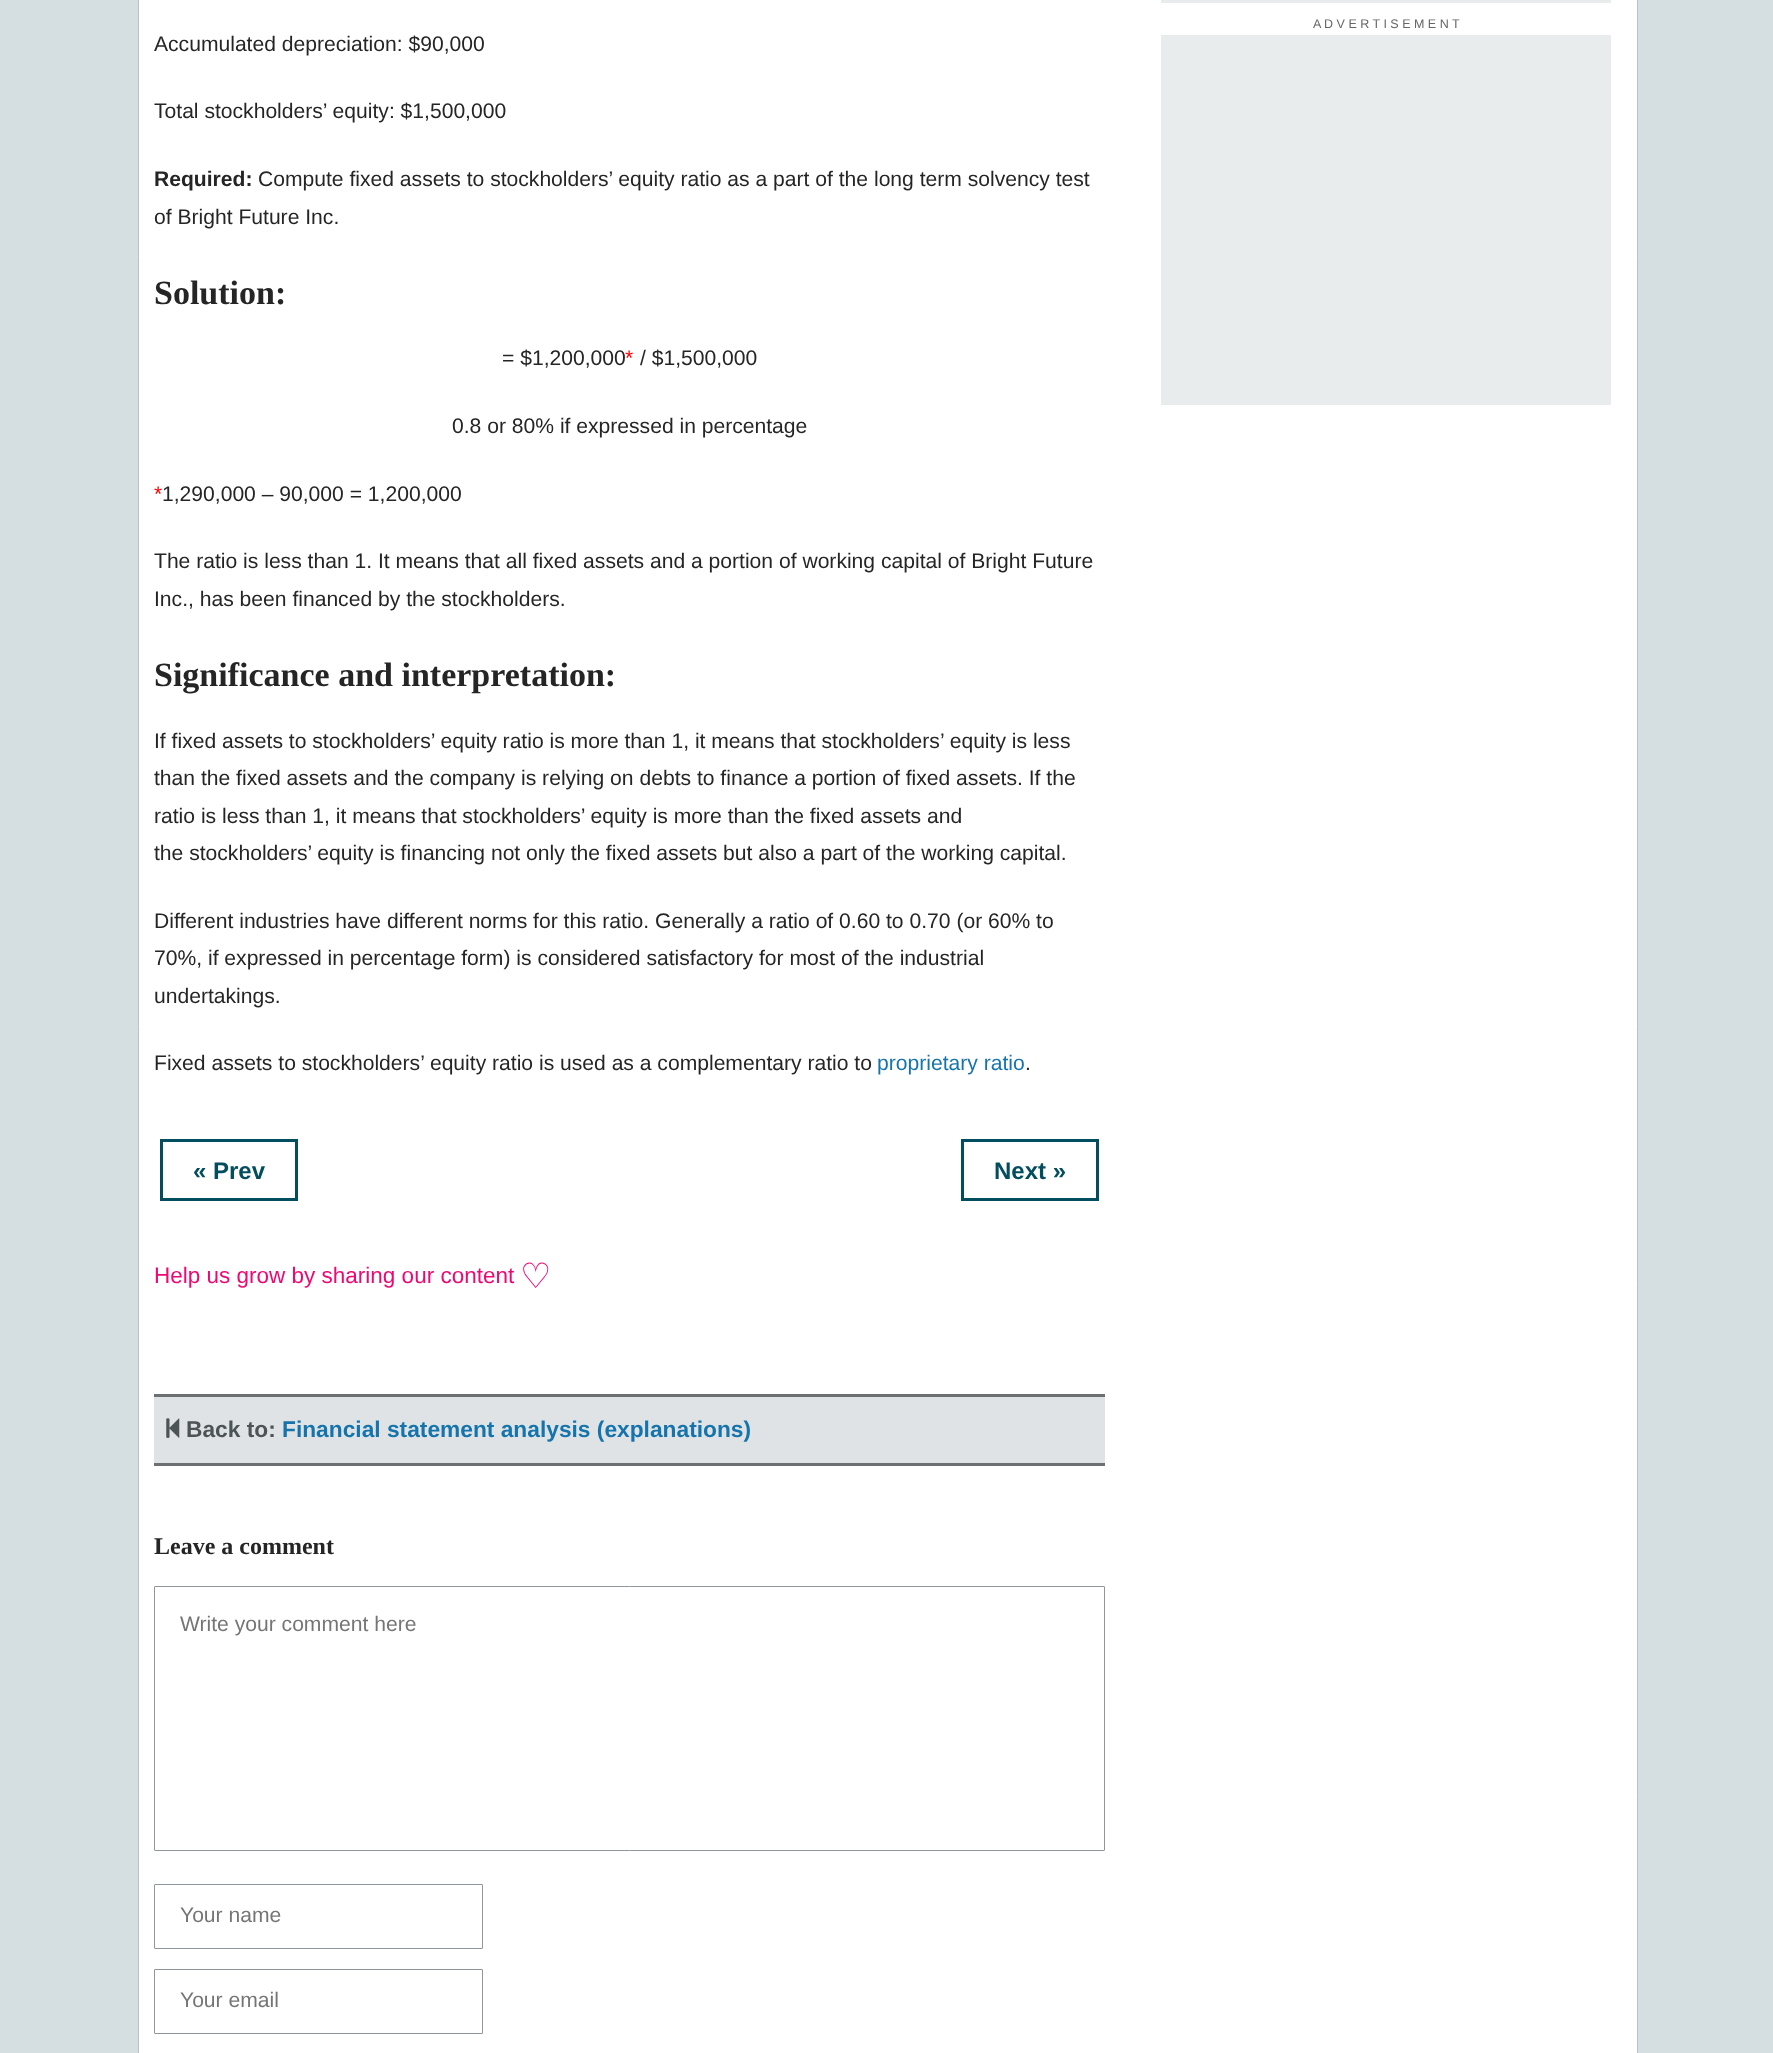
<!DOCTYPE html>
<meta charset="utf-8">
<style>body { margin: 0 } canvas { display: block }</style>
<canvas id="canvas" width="1773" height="2053"></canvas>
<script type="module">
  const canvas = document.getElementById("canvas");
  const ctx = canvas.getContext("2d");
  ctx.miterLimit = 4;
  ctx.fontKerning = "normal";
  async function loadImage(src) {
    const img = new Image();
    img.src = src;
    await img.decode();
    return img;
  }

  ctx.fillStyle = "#d5dfe1";
  ctx.fillRect(0, 0, 1773, 2053);
  ctx.fillStyle = "#ffffff";
  ctx.beginPath();
  ctx.rect(138.5, -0.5, 1499, 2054);
  ctx.fill();
  ctx.strokeStyle = "#b8c3c5";
  ctx.stroke();
  ctx.fillStyle = "#e9eced";
  ctx.fillRect(1161, 0, 450, 3);
  ctx.font = "12.5px Liberation Sans";
  ctx.fillStyle = "#666666";
  ctx.fillText("A D V E R T I S E M E N T", 1313, 28);
  ctx.fillStyle = "#e9eced";
  ctx.fillRect(1161, 35, 450, 370);
  ctx.font = "21.1px Liberation Sans";
  ctx.fillStyle = "#252525";
  ctx.fillText("Accumulated depreciation: $90,000", 154, 51);
  ctx.fillText("Total stockholders’ equity: $1,500,000", 154, 118);
  ctx.font = "bold 21.1px Liberation Sans";
  ctx.fillText("Required:", 154, 186);
  ctx.font = "21.1px Liberation Sans";
  ctx.fillText("Compute fixed assets to stockholders’ equity ratio as a part of the long term solvency test", 258, 186);
  ctx.fillText("of Bright Future Inc.", 154, 224);
  ctx.font = "bold 34px Liberation Serif";
  ctx.fillText("Solution:", 154, 304);
  ctx.font = "21.1px Liberation Sans";
  ctx.fillText("= $1,200,000", 502, 365);
  ctx.fillStyle = "#ff0000";
  ctx.fillText("*", 625, 365);
  ctx.fillStyle = "#252525";
  ctx.fillText("/ $1,500,000", 640, 365);
  ctx.fillText("0.8 or 80% if expressed in percentage", 452, 433);
  ctx.fillStyle = "#ff0000";
  ctx.fillText("*", 154, 501);
  ctx.fillStyle = "#252525";
  ctx.fillText("1,290,000 – 90,000 = 1,200,000", 162, 501);
  ctx.fillText("The ratio is less than 1. It means that all fixed assets and a portion of working capital of Bright Future", 154, 568);
  ctx.fillText("Inc., has been financed by the stockholders.", 154, 606);
  ctx.font = "bold 34px Liberation Serif";
  ctx.fillText("Significance and interpretation:", 154, 686);
  ctx.font = "21.1px Liberation Sans";
  ctx.fillText("If fixed assets to stockholders’ equity ratio is more than 1, it means that stockholders’ equity is less", 154, 748);
  ctx.fillText("than the fixed assets and the company is relying on debts to finance a portion of fixed assets. If the", 154, 785);
  ctx.fillText("ratio is less than 1, it means that stockholders’ equity is more than the fixed assets and", 154, 823);
  ctx.fillText("the stockholders’ equity is financing not only the fixed assets but also a part of the working capital.", 154, 860);
  ctx.fillText("Different industries have different norms for this ratio. Generally a ratio of 0.60 to 0.70 (or 60% to", 154, 928);
  ctx.fillText("70%, if expressed in percentage form) is considered satisfactory for most of the industrial", 154, 965);
  ctx.fillText("undertakings.", 154, 1003);
  ctx.fillText("Fixed assets to stockholders’ equity ratio is used as a complementary ratio to", 154, 1070);
  ctx.fillStyle = "#1574ab";
  ctx.fillText("proprietary ratio", 877, 1070);
  ctx.fillStyle = "#252525";
  ctx.fillText(".", 1025, 1070);
  ctx.strokeStyle = "#024d5e";
  ctx.lineWidth = 3;
  ctx.strokeRect(161.5, 1140.5, 135, 59);
  ctx.font = "bold 24px Liberation Sans";
  ctx.fillStyle = "#024d5e";
  ctx.fillText("« Prev", 193, 1179);
  ctx.strokeRect(962.5, 1140.5, 135, 59);
  ctx.fillText("Next »", 994, 1179);
  ctx.font = "22.5px Liberation Sans";
  ctx.fillStyle = "#ef0772";
  ctx.fillText("Help us grow by sharing our content", 154, 1283);
  ctx.font = "35px DejaVu Sans";
  ctx.fillText("♡", 520, 1288);
  ctx.fillStyle = "#dfe3e5";
  ctx.fillRect(154, 1397, 951, 66);
  ctx.fillStyle = "#6c7072";
  ctx.fillRect(154, 1394, 951, 3);
  ctx.fillRect(154, 1463, 951, 3);
  ctx.drawImage(await loadImage("img1.png"), 166, 1418, 14, 20);
  ctx.font = "bold 22.75px Liberation Sans";
  ctx.fillStyle = "#4d5456";
  ctx.fillText("Back to:", 186, 1437);
  ctx.fillStyle = "#1574ab";
  ctx.fillText("Financial statement analysis (explanations)", 282, 1437);
  ctx.font = "bold 24px Liberation Serif";
  ctx.fillStyle = "#252525";
  ctx.fillText("Leave a comment", 154, 1554);
  ctx.beginPath();
  ctx.roundRect(154.5, 1586.5, 950, 264, 0.5);
  ctx.strokeStyle = "#8d9799";
  ctx.lineWidth = 1;
  ctx.stroke();
  ctx.font = "21.1px Liberation Sans";
  ctx.fillStyle = "#757575";
  ctx.fillText("Write your comment here", 180, 1631);
  ctx.beginPath();
  ctx.roundRect(154.5, 1884.5, 328, 64, 0.5);
  ctx.stroke();
  ctx.fillText("Your name", 180, 1922);
  ctx.beginPath();
  ctx.roundRect(154.5, 1969.5, 328, 64, 0.5);
  ctx.stroke();
  ctx.fillText("Your email", 180, 2007);
</script>
